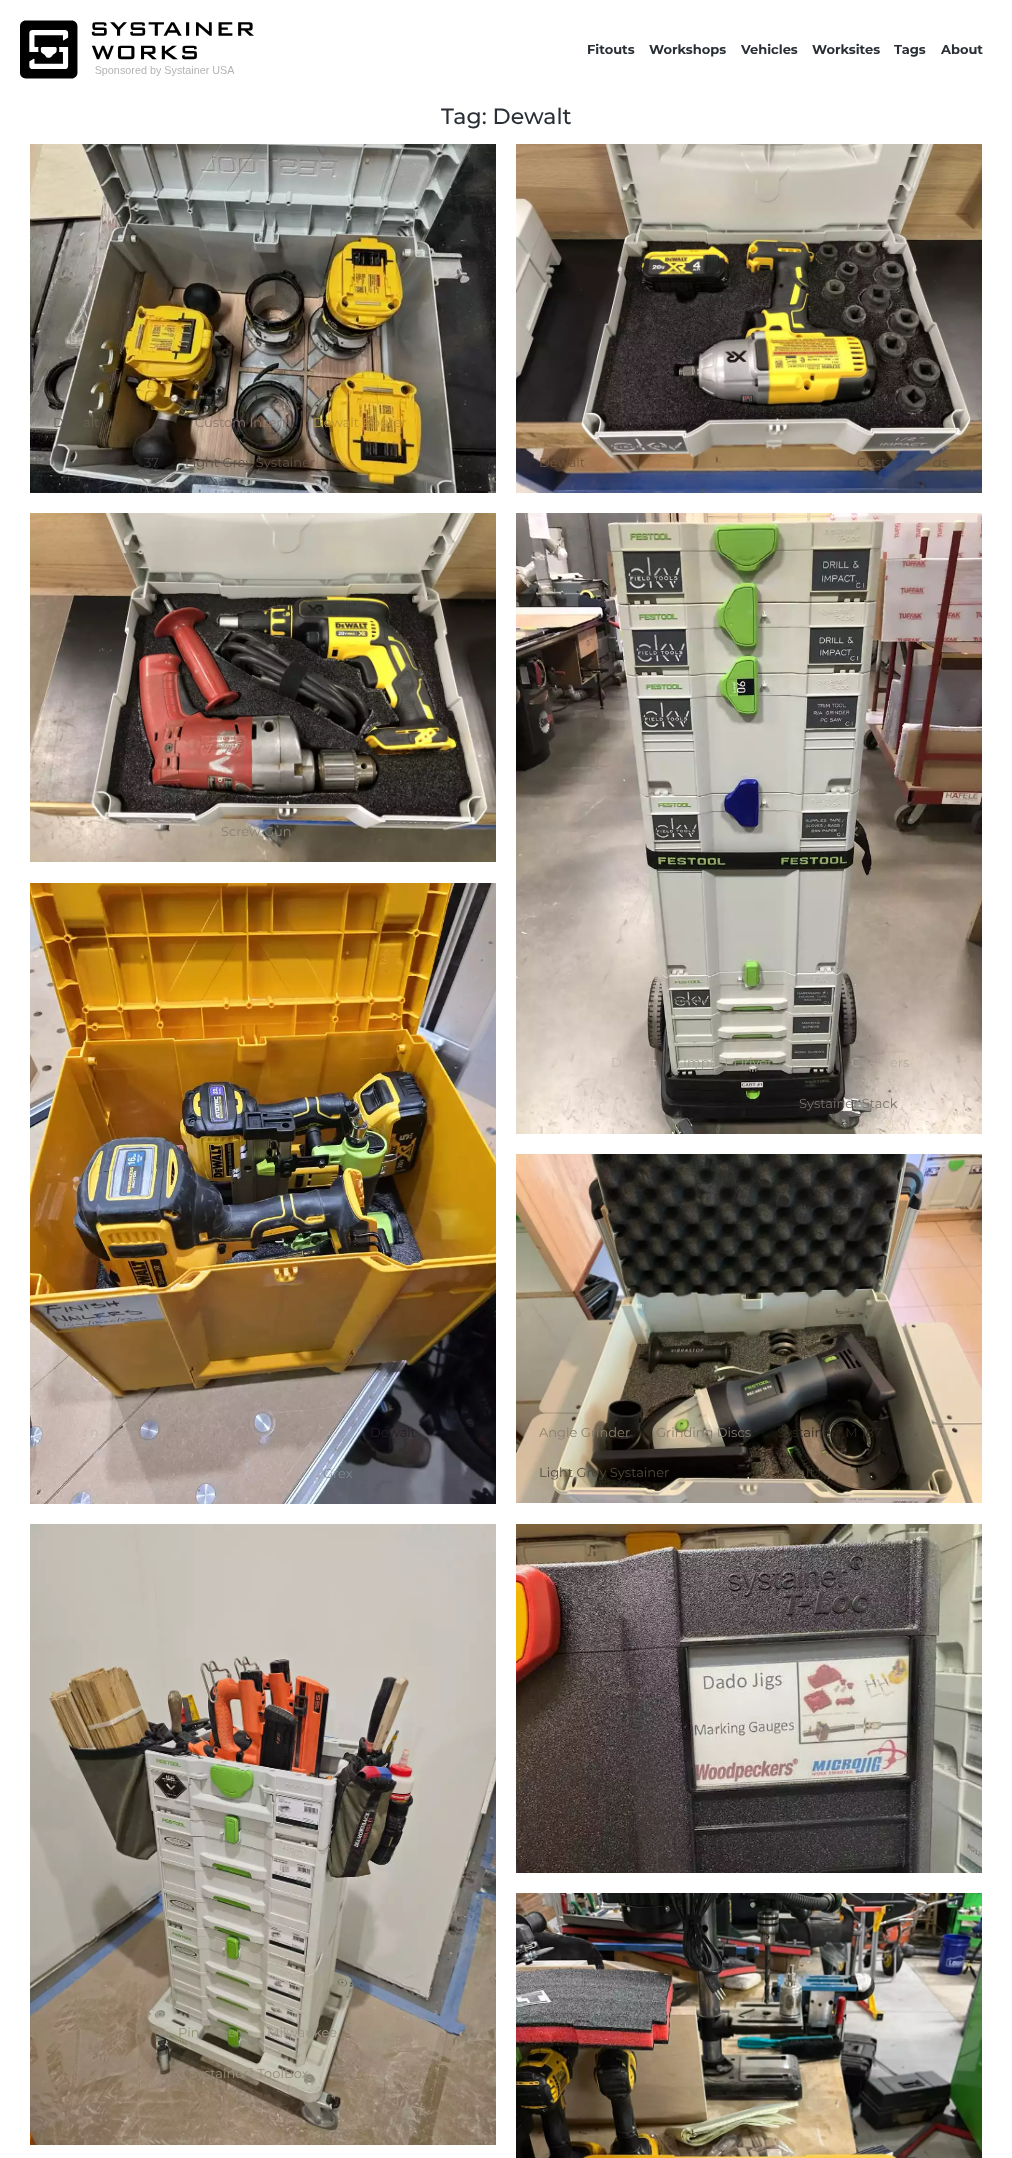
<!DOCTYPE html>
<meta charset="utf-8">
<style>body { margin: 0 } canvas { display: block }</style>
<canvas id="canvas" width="1012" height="2158"></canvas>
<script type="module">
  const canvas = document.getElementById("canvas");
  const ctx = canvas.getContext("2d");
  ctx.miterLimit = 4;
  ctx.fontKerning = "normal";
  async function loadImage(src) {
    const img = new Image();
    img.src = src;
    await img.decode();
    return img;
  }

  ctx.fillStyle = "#ffffff";
  ctx.fillRect(0, 0, 1012, 2158);
  ctx.drawImage(await loadImage("img1.png"), 20, 20, 234, 59);
  ctx.font = "bold 13px Montserrat";
  ctx.fillStyle = "#2a2f36";
  ctx.fillText("Fitouts", 587, 54);
  ctx.fillText("Workshops", 649, 54);
  ctx.fillText("Vehicles", 741, 54);
  ctx.fillText("Worksites", 812, 54);
  ctx.fillText("Tags", 894, 54);
  ctx.fillText("About", 941, 54);
  ctx.font = "500 22px Montserrat";
  ctx.fillText("Tag: Dewalt", 441, 124);
  ctx.drawImage(await loadImage("img2.png"), 30, 144, 466, 349);
  ctx.font = "13px Montserrat";
  ctx.fillStyle = "#656255";
  ctx.fillText("D", 53, 427);
  ctx.fillText("alt", 83, 427);
  ctx.fillStyle = "#86756a";
  ctx.fillText("Custom Insert", 195, 427);
  ctx.fillStyle = "#bc942e";
  ctx.fillText("Dewalt Router", 313, 427);
  ctx.fillStyle = "#42403c";
  ctx.fillText("37", 144, 467);
  ctx.fillStyle = "#605245";
  ctx.fillText("Light Grey Systainer", 185, 467);
  ctx.drawImage(await loadImage("img3.png"), 516, 144, 466, 349);
  ctx.fillStyle = "#73563e";
  ctx.fillText("Dewalt", 539, 467);
  ctx.fillStyle = "#605245";
  ctx.fillText("Cust", 857, 467);
  ctx.fillText("ds", 933, 467);
  ctx.drawImage(await loadImage("img4.png"), 30, 513, 466, 349);
  ctx.fillStyle = "#8a8274";
  ctx.fillText("Screw Gun", 221, 836);
  ctx.drawImage(await loadImage("img5.png"), 516, 513, 466, 621);
  ctx.fillStyle = "#c2b6ad";
  ctx.fillText("D", 611, 1067);
  ctx.fillText("lt", 648, 1067);
  ctx.fillStyle = "#9e9e8e";
  ctx.fillText("Impact Driver", 683, 1067);
  ctx.fillStyle = "#b6aba0";
  ctx.fillText("C", 851, 1067);
  ctx.fillText("ers", 890, 1067);
  ctx.fillStyle = "#78726e";
  ctx.fillText("Systainer Stack", 799, 1108);
  ctx.drawImage(await loadImage("img6.png"), 30, 883, 466, 621);
  ctx.fillStyle = "#c2b6ad";
  ctx.fillText("n", 90, 1437);
  ctx.fillStyle = "#242126";
  ctx.fillText("Dewalt", 370, 1437);
  ctx.fillStyle = "#818996";
  ctx.fillText("Grex", 323, 1478);
  ctx.drawImage(await loadImage("img7.png"), 516, 1154, 466, 349);
  ctx.fillStyle = "#8b7f6c";
  ctx.fillText("Angle Grinder", 539, 1437);
  ctx.fillStyle = "#857c6b";
  ctx.fillText("Grinding Discs", 656, 1437);
  ctx.fillStyle = "#30291f";
  ctx.fillText("Systainer³ M 187", 777, 1437);
  ctx.fillStyle = "#514b3d";
  ctx.fillText("Light Grey Systainer", 539, 1477);
  ctx.fillStyle = "#44392b";
  ctx.fillText("lt", 806, 1477);
  ctx.drawImage(await loadImage("img8.png"), 516, 1524, 466, 349);
  ctx.drawImage(await loadImage("img9.png"), 30, 1524, 466, 621);
  ctx.fillStyle = "#8e9572";
  ctx.fillText("Pin", 178, 2037);
  ctx.fillText("er", 228, 2037);
  ctx.fillStyle = "#9a9586";
  ctx.fillText("Milwaukee", 267, 2037);
  ctx.fillStyle = "#958d7a";
  ctx.fillText("Systainer³ ToolBox", 189, 2078);
  ctx.drawImage(await loadImage("img10.png"), 516, 1893, 466, 265);
</script>
